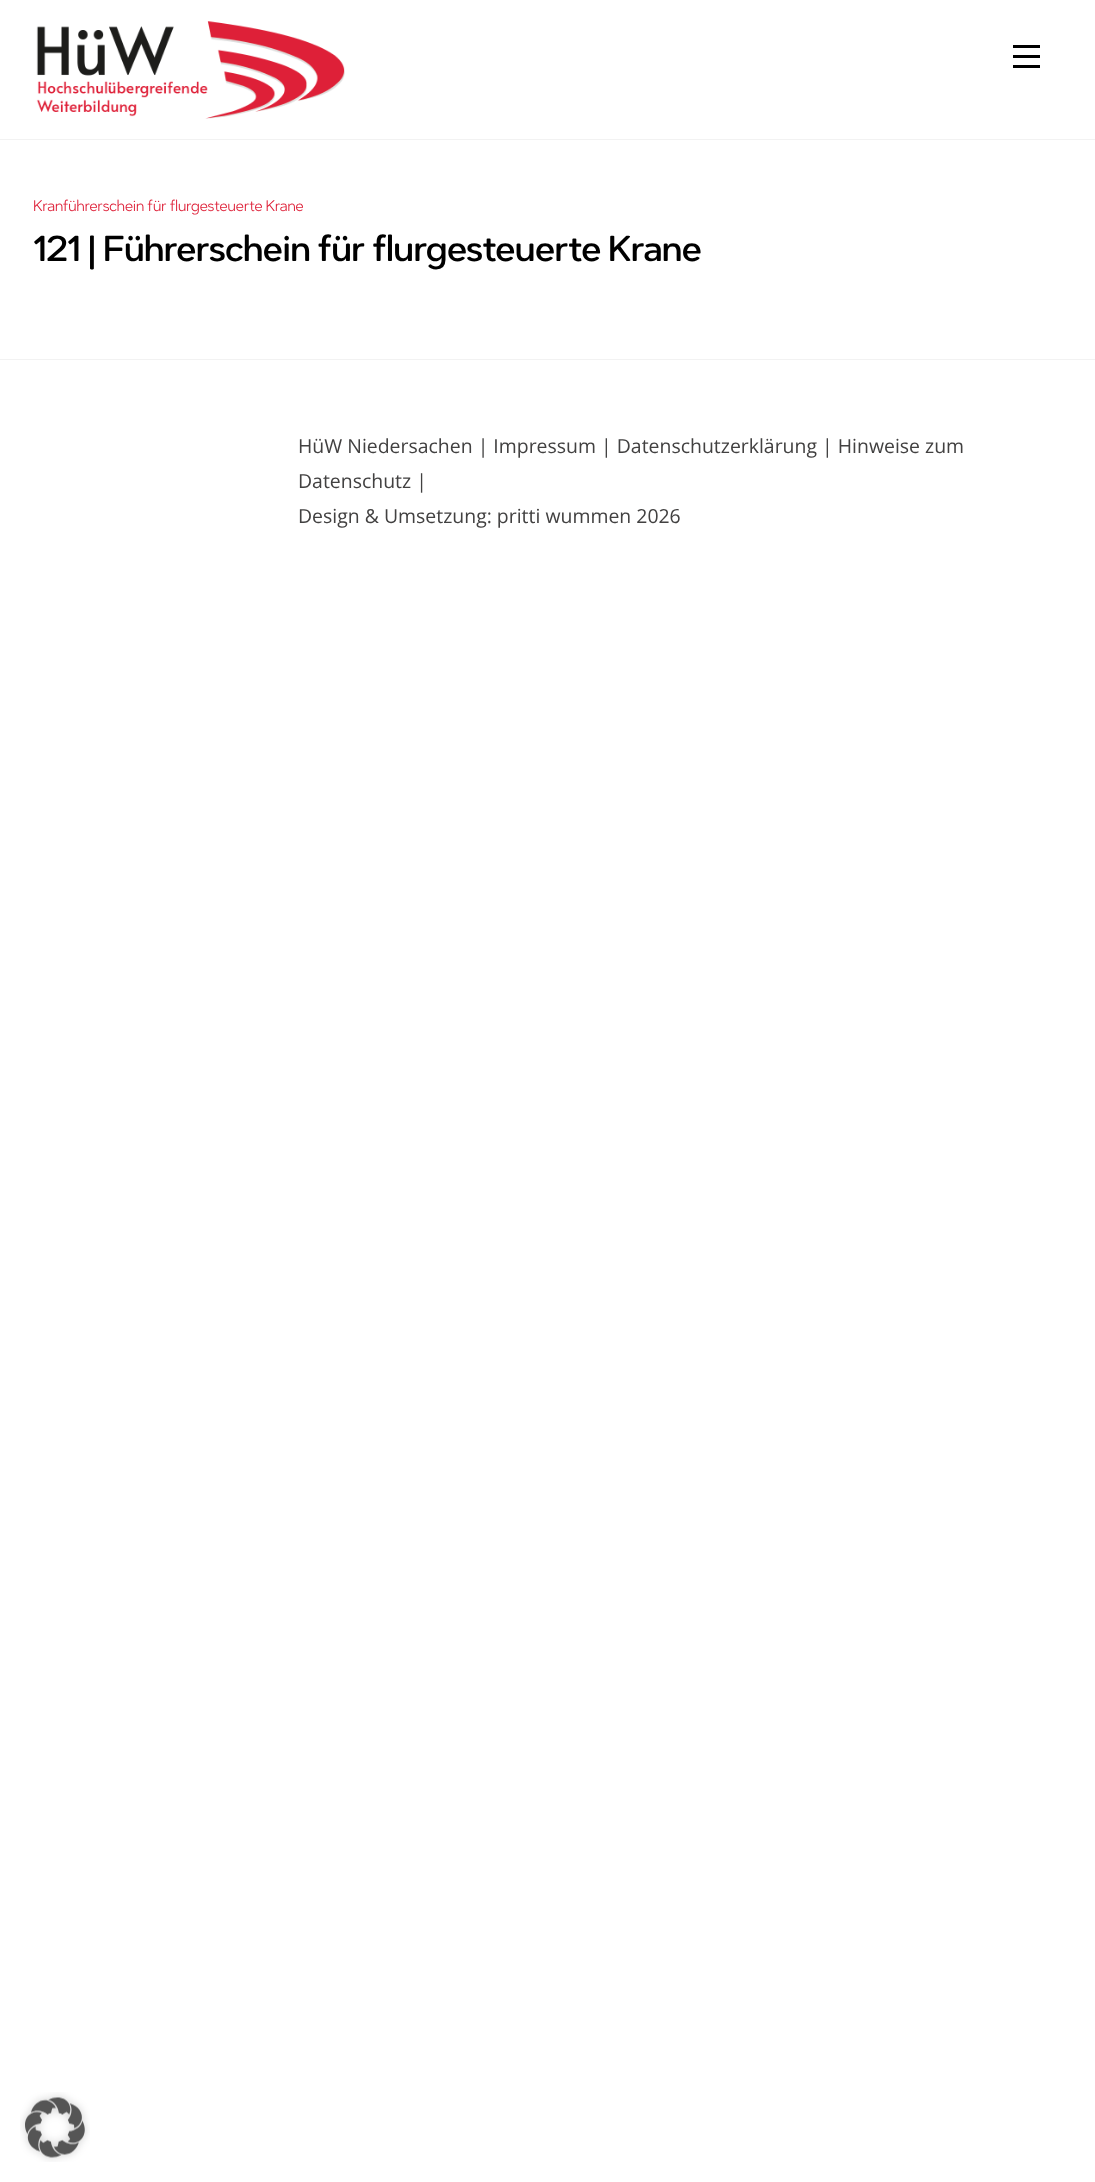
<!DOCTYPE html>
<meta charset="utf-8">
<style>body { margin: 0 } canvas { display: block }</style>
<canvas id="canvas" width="1095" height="2182"></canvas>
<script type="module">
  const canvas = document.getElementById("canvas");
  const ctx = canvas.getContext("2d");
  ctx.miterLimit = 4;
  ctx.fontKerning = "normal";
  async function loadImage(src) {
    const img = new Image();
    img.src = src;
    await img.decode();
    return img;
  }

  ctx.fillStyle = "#ffffff";
  ctx.fillRect(0, 0, 1095, 2182);
  ctx.fillStyle = "#f2f2f2";
  ctx.fillRect(0, 139, 1095, 1);
  ctx.drawImage(await loadImage("img1.png"), 36, 21, 309, 98);
  ctx.fillStyle = "#000000";
  ctx.fillRect(1013, 65, 27, 3);
  ctx.fillRect(1013, 45, 27, 3);
  ctx.fillRect(1013, 55, 27, 3);
  ctx.letterSpacing = "-0.45px";
  ctx.font = "300 15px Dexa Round";
  ctx.fillStyle = "#de2038";
  ctx.fillText("Kranführerschein für flurgesteuerte Krane", 33, 211);
  ctx.letterSpacing = "-1.05px";
  ctx.font = "500 35px Dexa Round";
  ctx.fillStyle = "#000000";
  ctx.fillText("121 | Führerschein für flurgesteuerte Krane", 33, 261);
  ctx.fillStyle = "#f2f2f2";
  ctx.fillRect(0, 359, 1095, 1);
  ctx.letterSpacing = "0px";
  ctx.font = "19.45px Open Sans";
  ctx.fillStyle = "#424141";
  ctx.fillText("HüW Niedersachen | Impressum | Datenschutzerklärung | Hinweise zum", 298, 453);
  ctx.fillText("Datenschutz |", 298, 488);
  ctx.fillText("Design & Umsetzung: pritti wummen 2026", 298, 523);
  ctx.drawImage(await loadImage("img2.png"), 20, 2092, 70, 70);
</script>
